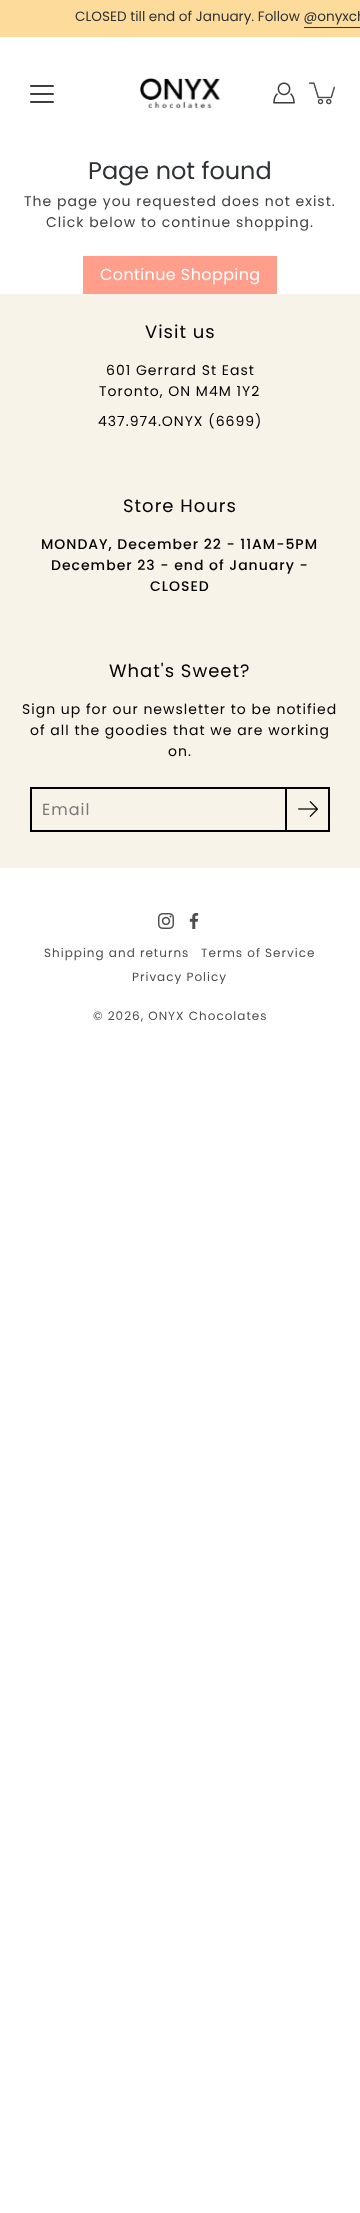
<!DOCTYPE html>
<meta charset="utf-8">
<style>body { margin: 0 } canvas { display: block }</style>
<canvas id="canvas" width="360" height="2213"></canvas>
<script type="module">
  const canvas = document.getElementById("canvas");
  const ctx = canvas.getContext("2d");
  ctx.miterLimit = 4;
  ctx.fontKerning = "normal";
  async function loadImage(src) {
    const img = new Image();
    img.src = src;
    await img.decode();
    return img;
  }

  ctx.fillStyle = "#ffffff";
  ctx.fillRect(0, 0, 360, 2213);
  ctx.fillStyle = "#fcdb9b";
  ctx.fillRect(0, 0, 360, 37);
  ctx.font = "13.6px Poppins";
  ctx.fillStyle = "#2e3234";
  ctx.fillText("CLOSED till end of January. Follow @onyxch", 75, 21);
  ctx.fillRect(304, 27, 56, 1);
  ctx.drawImage(await loadImage("img1.png"), 140, 78, 80, 30);
  ctx.fillStyle = "#3e3e3e";
  ctx.beginPath();
  ctx.roundRect(30, 93, 24, 2, 1);
  ctx.fill();
  ctx.beginPath();
  ctx.roundRect(30, 85, 24, 2, 1);
  ctx.fill();
  ctx.beginPath();
  ctx.roundRect(30, 101, 24, 2, 1);
  ctx.fill();
  ctx.drawImage(await loadImage("img2.png"), 273, 82, 22, 22);
  ctx.drawImage(await loadImage("img3.png"), 309, 82, 26, 23);
  ctx.font = "24px Poppins";
  ctx.fillStyle = "#2e3234";
  ctx.fillText("Page not found", 88, 179);
  ctx.letterSpacing = "1px";
  ctx.font = "14px Poppins";
  ctx.fillStyle = "#3e3e3e";
  ctx.fillText("The page you requested does not exist.", 24, 206);
  ctx.fillText("Click below to continue shopping.", 46, 227);
  ctx.fillStyle = "#ff9f8b";
  ctx.fillRect(83, 256, 194, 38);
  ctx.letterSpacing = "0.4px";
  ctx.font = "16px Poppins";
  ctx.fillStyle = "#ffffff";
  ctx.fillText("Continue Shopping", 100, 280);
  ctx.fillStyle = "#f8f3e9";
  ctx.fillRect(0, 294, 360, 574);
  ctx.letterSpacing = "1px";
  ctx.font = "18px Poppins";
  ctx.fillStyle = "#000000";
  ctx.fillText("Visit us", 145, 338);
  ctx.font = "14px Poppins";
  ctx.fillText("601 Gerrard St East", 106, 375);
  ctx.fillText("Toronto, ON M4M 1Y2", 99, 396);
  ctx.fillText("437.974.ONYX (6699)", 98, 426);
  ctx.font = "18px Poppins";
  ctx.fillText("Store Hours", 123, 512);
  ctx.font = "500 14px Poppins";
  ctx.fillText("MONDAY, December 22 - 11AM-5PM", 41, 549);
  ctx.fillText("December 23 - end of January -", 51, 570);
  ctx.fillText("CLOSED", 150, 591);
  ctx.font = "18px Poppins";
  ctx.fillText("What's Sweet?", 109, 677);
  ctx.font = "14px Poppins";
  ctx.fillText("Sign up for our newsletter to be notified", 22, 714);
  ctx.fillText("of all the goodies that we are working", 30, 735);
  ctx.fillText("on.", 168, 756);
  ctx.strokeStyle = "#000000";
  ctx.lineWidth = 2;
  ctx.strokeRect(31, 788, 298, 43);
  ctx.font = "16px Poppins";
  ctx.fillStyle = "#7c7a75";
  ctx.fillText("Email", 42, 815);
  ctx.strokeRect(286, 788, 43, 43);
  ctx.drawImage(await loadImage("img4.png"), 298, 801, 20, 16);
  ctx.drawImage(await loadImage("img5.png"), 158, 913, 16, 16);
  ctx.drawImage(await loadImage("img6.png"), 189, 913, 10, 16);
  ctx.font = "12px Poppins";
  ctx.fillStyle = "#4d4d4d";
  ctx.fillText("Shipping and returns", 44, 957);
  ctx.fillText("Terms of Service", 201, 957);
  ctx.fillText("Privacy Policy", 132, 981);
  ctx.fillText("© 2026, ONYX Chocolates", 93, 1020);
</script>
